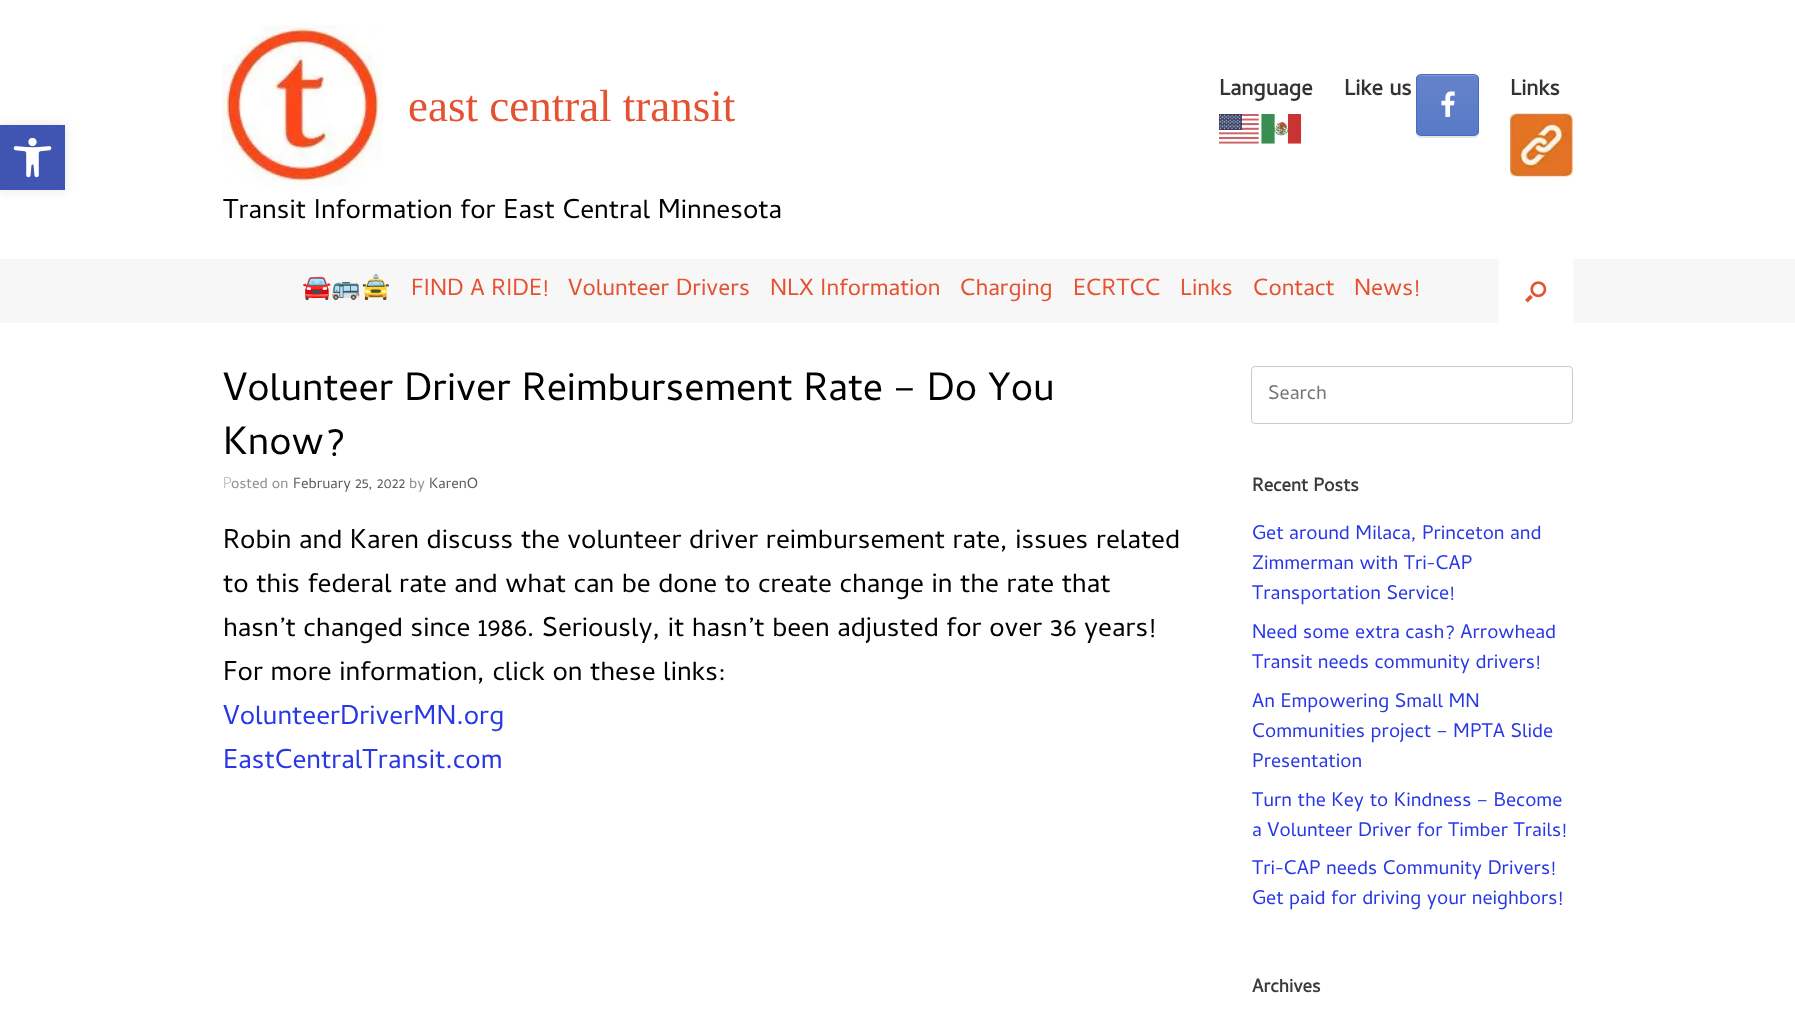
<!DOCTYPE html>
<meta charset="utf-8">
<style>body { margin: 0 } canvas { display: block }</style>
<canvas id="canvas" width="1795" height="1010"></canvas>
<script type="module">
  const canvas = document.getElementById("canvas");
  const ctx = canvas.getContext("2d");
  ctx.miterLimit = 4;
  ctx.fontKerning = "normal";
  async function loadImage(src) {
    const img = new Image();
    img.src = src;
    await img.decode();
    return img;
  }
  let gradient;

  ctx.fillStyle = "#ffffff";
  ctx.fillRect(0, 0, 1795, 1010);
  ctx.fillStyle = "rgba(0, 0, 0, 0.1)";
  ctx.filter = "blur(6px)";
  ctx.beginPath();
  ctx.rect(0, 125, 65, 65);
  ctx.fill();
  ctx.filter = "none";
  ctx.fillStyle = "#4054b2";
  ctx.fillRect(0, 125, 65, 65);
  ctx.drawImage(await loadImage("img1.png"), 13, 138, 39, 40);
  ctx.drawImage(await loadImage("img2.png"), 222, 25, 161, 161);
  ctx.font = "45px Liberation Serif";
  ctx.fillStyle = "#e45231";
  ctx.fillText("east central transit", 408, 121);
  ctx.font = "27.5px Cambay";
  ctx.fillStyle = "#000000";
  ctx.fillText("Transit Information for East Central Minnesota", 223, 218);
  ctx.font = "bold 22.5px Cambay";
  ctx.fillStyle = "#333333";
  ctx.fillText("Language", 1219, 95);
  ctx.drawImage(await loadImage("img3.png"), 1219, 114, 40, 30);
  ctx.drawImage(await loadImage("img4.png"), 1261, 114, 40, 30);
  ctx.fillText("Like us", 1344, 95);
  ctx.fillStyle = "rgba(0, 0, 0, 0.1)";
  ctx.filter = "blur(0.5px)";
  ctx.beginPath();
  ctx.roundRect(1416, 75, 63, 63, 5);
  ctx.fill();
  ctx.filter = "none";
  ctx.save();
  ctx.beginPath();
  ctx.roundRect(1416, 74, 63, 62, 5);
  ctx.clip();
  gradient = ctx.createLinearGradient(1448, 135, 1448, 75);
  gradient.addColorStop(0, "#597ac7");
  gradient.addColorStop(1, "#6483cb");
  ctx.fillStyle = gradient;
  ctx.fillRect(1416, 75, 63, 60);
  ctx.restore();
  ctx.fillStyle = "#839cd5";
  ctx.beginPath();
  ctx.moveTo(1421, 76);
  ctx.lineTo(1474, 76);
  ctx.bezierCurveTo(1476, 76, 1478, 78, 1478, 80);
  ctx.bezierCurveTo(1478, 73, 1470, 75, 1465, 75);
  ctx.lineTo(1431, 75);
  ctx.bezierCurveTo(1426, 75, 1418, 73, 1418, 80);
  ctx.bezierCurveTo(1418, 78, 1419, 76, 1421, 76);
  ctx.closePath();
  ctx.fill();
  ctx.beginPath();
  ctx.roundRect(1416.5, 74.5, 62, 61, 4.5);
  ctx.strokeStyle = "#466bc1";
  ctx.stroke();
  ctx.drawImage(await loadImage("img5.png"), 1441, 91, 14, 26);
  ctx.fillStyle = "#333333";
  ctx.fillText("Links", 1510, 95);
  ctx.drawImage(await loadImage("img6.png"), 1510, 113, 63, 64);
  ctx.fillStyle = "#f7f7f7";
  ctx.fillRect(0, 259, 1795, 64);
  ctx.font = "23.75px Noto Color Emoji";
  ctx.fillStyle = "#e45231";
  ctx.fillText("🚘🚌🚖", 302, 295);
  ctx.font = "23.75px Cambay";
  ctx.fillText("FIND A RIDE!", 411, 295);
  ctx.fillText("Volunteer Drivers", 568, 295);
  ctx.fillText("NLX Information", 770, 295);
  ctx.fillText("Charging", 960, 295);
  ctx.fillText("ECRTCC", 1073, 295);
  ctx.fillText("Links", 1180, 295);
  ctx.fillText("Contact", 1253, 295);
  ctx.fillText("News!", 1354, 295);
  ctx.fillStyle = "#ffffff";
  ctx.fillRect(1499, 259, 74, 64);
  ctx.drawImage(await loadImage("img7.png"), 1525, 281, 22, 22);
  ctx.font = "40px Cambay";
  ctx.fillStyle = "#000000";
  ctx.fillText("Volunteer Driver Reimbursement Rate – Do You", 223, 400);
  ctx.fillText("Know?", 223, 454);
  ctx.font = "200 15px Noto Sans";
  ctx.fillStyle = "#8f8f8f";
  ctx.fillText("P", 223, 488);
  ctx.font = "15px Cambay";
  ctx.fillText("osted on", 231, 488);
  ctx.fillStyle = "#5e5e5e";
  ctx.fillText("February 25, 2022", 293, 488);
  ctx.fillStyle = "#8f8f8f";
  ctx.fillText("by", 409, 488);
  ctx.fillStyle = "#5e5e5e";
  ctx.fillText("KarenO", 429, 488);
  ctx.font = "27.5px Cambay";
  ctx.fillStyle = "#000000";
  ctx.fillText("Robin and Karen discuss the volunteer driver reimbursement rate, issues related", 223, 548);
  ctx.fillText("to this federal rate and what can be done to create change in the rate that", 223, 592);
  ctx.fillText("hasn’t changed since 1986. Seriously, it hasn’t been adjusted for over 36 years!", 223, 636);
  ctx.fillText("For more information, click on these links:", 223, 680);
  ctx.fillStyle = "#2938e5";
  ctx.fillText("VolunteerDriverMN.org", 223, 724);
  ctx.fillText("EastCentralTransit.com", 223, 768);
  ctx.beginPath();
  ctx.roundRect(1251.5, 366.5, 321, 57, 3.5);
  ctx.strokeStyle = "#cccccc";
  ctx.stroke();
  ctx.font = "20px Cambay";
  ctx.fillStyle = "#757575";
  ctx.fillText("Search", 1268, 399);
  ctx.font = "bold 18.75px Cambay";
  ctx.fillStyle = "#3b3b3b";
  ctx.fillText("Recent Posts", 1252, 491);
  ctx.font = "20px Cambay";
  ctx.fillStyle = "#2938e5";
  ctx.fillText("Get around Milaca, Princeton and", 1252, 539);
  ctx.fillText("Zimmerman with Tri-CAP", 1252, 569);
  ctx.fillText("Transportation Service!", 1252, 599);
  ctx.fillText("Need some extra cash? Arrowhead", 1252, 638);
  ctx.fillText("Transit needs community drivers!", 1252, 668);
  ctx.fillText("An Empowering Small MN", 1252, 707);
  ctx.fillText("Communities project – MPTA Slide", 1252, 737);
  ctx.fillText("Presentation", 1252, 767);
  ctx.fillText("Turn the Key to Kindness – Become", 1252, 806);
  ctx.fillText("a Volunteer Driver for Timber Trails!", 1252, 836);
  ctx.fillText("Tri-CAP needs Community Drivers!", 1252, 874);
  ctx.fillText("Get paid for driving your neighbors!", 1252, 904);
  ctx.font = "bold 18.75px Cambay";
  ctx.fillStyle = "#3b3b3b";
  ctx.fillText("Archives", 1252, 992);
</script>
